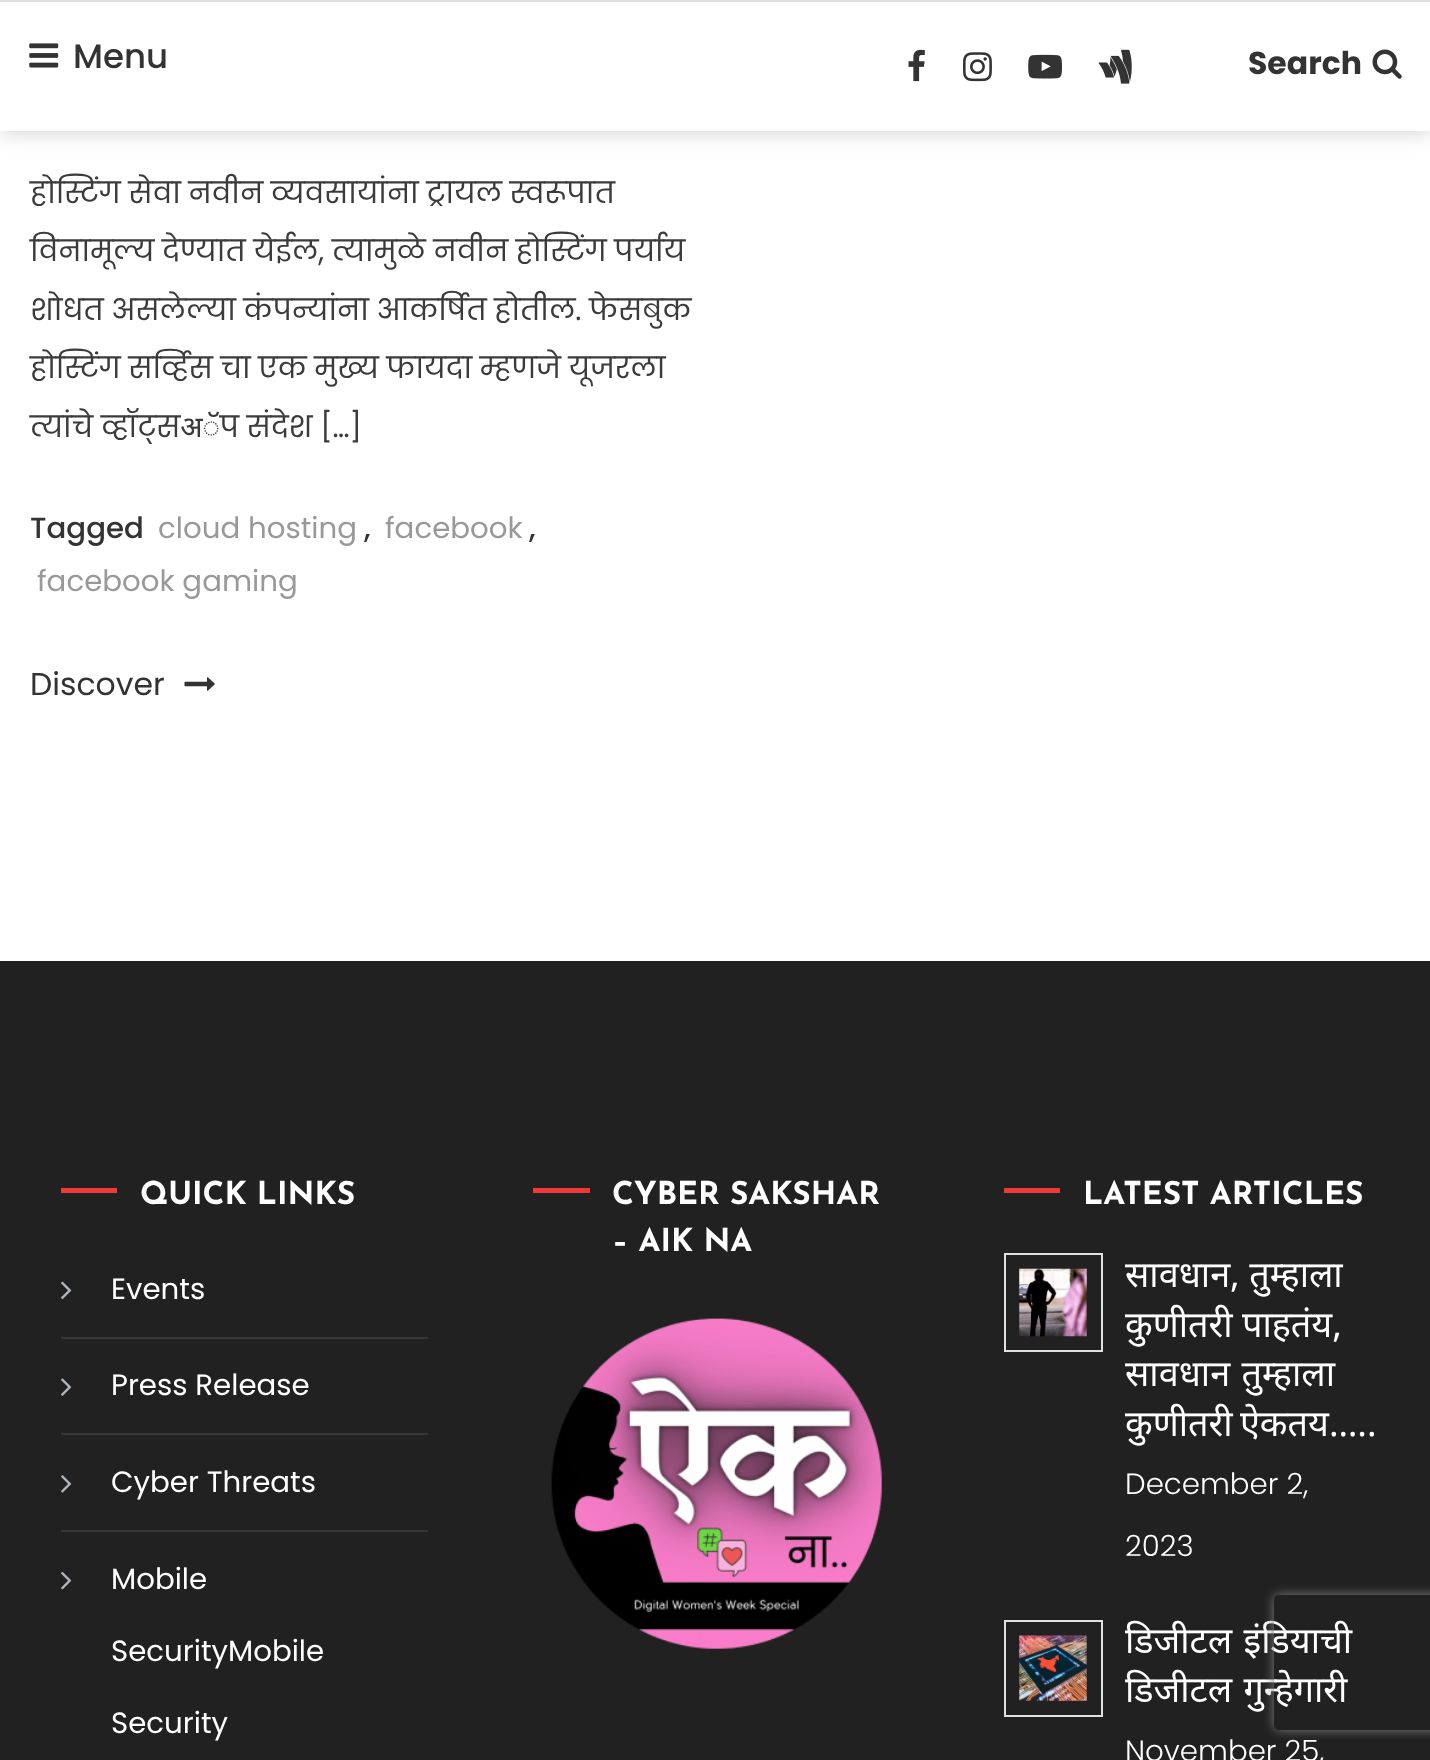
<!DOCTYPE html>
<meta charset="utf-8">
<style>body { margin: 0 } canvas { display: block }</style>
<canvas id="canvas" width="1430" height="1760"></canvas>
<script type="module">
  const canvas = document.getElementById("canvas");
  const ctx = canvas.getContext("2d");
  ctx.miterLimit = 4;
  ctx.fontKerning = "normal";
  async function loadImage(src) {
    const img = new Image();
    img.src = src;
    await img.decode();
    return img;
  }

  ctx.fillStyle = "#ffffff";
  ctx.fillRect(0, 0, 1430, 1760);
  ctx.fillStyle = "rgba(0, 0, 0, 0.2)";
  ctx.filter = "blur(11px)";
  ctx.beginPath();
  ctx.rect(0, 0, 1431, 131);
  ctx.fill();
  ctx.filter = "none";
  ctx.fillStyle = "#ffffff";
  ctx.fillRect(0, 2, 1430, 129);
  ctx.fillStyle = "#e1e1e1";
  ctx.fillRect(0, 0, 1430, 2);
  ctx.drawImage(await loadImage("img1.png"), 29, 43, 30, 25);
  ctx.font = "500 34px Poppins";
  ctx.fillStyle = "#333333";
  ctx.fillText("Menu", 73, 68);
  ctx.drawImage(await loadImage("img2.png"), 908, 49, 17, 33);
  ctx.drawImage(await loadImage("img3.png"), 963, 52, 29, 30);
  ctx.drawImage(await loadImage("img4.png"), 1028, 54, 34, 25);
  ctx.drawImage(await loadImage("img5.png"), 1098, 49, 34, 35);
  ctx.font = "bold 31.5px Poppins";
  ctx.fillText("Search", 1248, 74);
  ctx.drawImage(await loadImage("img6.png"), 1372, 49, 30, 30);
  ctx.font = "29.25px Poppins";
  ctx.fillStyle = "#3b3b3b";
  ctx.fillText("होस्टिंग सेवा नवीन व्यवसायांना ट्रायल स्वरूपात", 30, 203);
  ctx.fillText("विनामूल्य देण्यात येईल, त्यामुळे नवीन होस्टिंग पर्याय", 30, 261);
  ctx.fillText("शोधत असलेल्या कंपन्यांना आकर्षित होतील. फेसबुक", 30, 320);
  ctx.fillText("होस्टिंग सर्व्हिस चा एक मुख्य फायदा म्हणजे यूजरला", 30, 378);
  ctx.fillText("त्यांचे व्हॉट्सअॅप संदेश […]", 30, 437);
  ctx.font = "500 29.25px Poppins";
  ctx.fillStyle = "#333333";
  ctx.fillText("Tagged", 30, 538);
  ctx.font = "29.25px Poppins";
  ctx.fillStyle = "#999999";
  ctx.fillText("cloud hosting", 158, 538);
  ctx.font = "500 29.25px Poppins";
  ctx.fillStyle = "#333333";
  ctx.fillText(",", 364, 538);
  ctx.font = "29.25px Poppins";
  ctx.fillStyle = "#999999";
  ctx.fillText("facebook", 385, 538);
  ctx.font = "500 29.25px Poppins";
  ctx.fillStyle = "#333333";
  ctx.fillText(",", 529, 538);
  ctx.font = "29.25px Poppins";
  ctx.fillStyle = "#999999";
  ctx.fillText("facebook gaming", 37, 591);
  ctx.font = "31.5px Poppins";
  ctx.fillStyle = "#333333";
  ctx.fillText("Discover", 30, 695);
  ctx.drawImage(await loadImage("img7.png"), 184, 677, 31, 14);
  ctx.fillStyle = "#212121";
  ctx.fillRect(0, 961, 1430, 799);
  ctx.fillStyle = "#f23737";
  ctx.fillRect(61, 1188, 56, 5);
  ctx.font = "bold 31.5px Josefin Sans";
  ctx.fillStyle = "#ffffff";
  ctx.fillText("QUICK LINKS", 140, 1204);
  ctx.fillStyle = "#373737";
  ctx.fillRect(61, 1337, 367, 2);
  ctx.drawImage(await loadImage("img8.png"), 61, 1281, 11, 19);
  ctx.font = "29.25px Poppins";
  ctx.fillStyle = "#ffffff";
  ctx.fillText("Events", 111, 1299);
  ctx.fillStyle = "#373737";
  ctx.fillRect(61, 1433, 367, 2);
  ctx.drawImage(await loadImage("img9.png"), 61, 1378, 11, 18);
  ctx.fillStyle = "#ffffff";
  ctx.fillText("Press Release", 111, 1395);
  ctx.fillStyle = "#373737";
  ctx.fillRect(61, 1530, 367, 2);
  ctx.drawImage(await loadImage("img10.png"), 61, 1475, 11, 18);
  ctx.fillStyle = "#ffffff";
  ctx.fillText("Cyber Threats", 111, 1492);
  ctx.drawImage(await loadImage("img11.png"), 61, 1571, 11, 19);
  ctx.fillText("Mobile", 111, 1589);
  ctx.fillText("SecurityMobile", 111, 1661);
  ctx.fillText("Security", 111, 1733);
  ctx.fillStyle = "#f23737";
  ctx.fillRect(533, 1188, 57, 5);
  ctx.font = "bold 31.5px Josefin Sans";
  ctx.fillStyle = "#ffffff";
  ctx.fillText("CYBER SAKSHAR", 612, 1204);
  ctx.fillText("– AIK NA", 612, 1251);
  ctx.drawImage(await loadImage("img12.png"), 551, 1318, 331, 331);
  ctx.fillStyle = "#f23737";
  ctx.fillRect(1004, 1188, 56, 5);
  ctx.fillStyle = "#ffffff";
  ctx.fillText("LATEST ARTICLES", 1083, 1204);
  ctx.strokeStyle = "#e1e1e1";
  ctx.lineWidth = 2;
  ctx.strokeRect(1005, 1254, 97, 97);
  ctx.drawImage(await loadImage("img13.png"), 1019, 1268, 68, 69);
  ctx.font = "36px Noto Sans";
  ctx.fillText("सावधान, तुम्हाला", 1125, 1287);
  ctx.fillText("कुणीतरी पाहतंय,", 1125, 1337);
  ctx.wordSpacing = "2px";
  ctx.fillText("सावधान तुम्हाला", 1125, 1386);
  ctx.wordSpacing = "-2px";
  ctx.fillText("कुणीतरी ऐकतय…..", 1125, 1436);
  ctx.wordSpacing = "0px";
  ctx.font = "300 29.25px Poppins";
  ctx.fillText("December 2,", 1125, 1494);
  ctx.fillText("2023", 1125, 1556);
  ctx.strokeRect(1005, 1621, 97, 95);
  ctx.drawImage(await loadImage("img14.png"), 1019, 1635, 68, 66);
  ctx.wordSpacing = "2px";
  ctx.font = "36px Noto Sans";
  ctx.fillText("डिजीटल इंडियाची", 1125, 1653);
  ctx.fillText("डिजीटल गुन्हेगारी", 1125, 1702);
  ctx.wordSpacing = "0px";
  ctx.font = "300 29.25px Poppins";
  ctx.fillText("November 25,", 1125, 1761);
  ctx.save();
  ctx.beginPath();
  ctx.moveTo(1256, 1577);
  ctx.lineTo(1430, 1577);
  ctx.lineTo(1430, 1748);
  ctx.lineTo(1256, 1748);
  ctx.closePath();
  ctx.moveTo(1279, 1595);
  ctx.lineTo(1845, 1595);
  ctx.bezierCurveTo(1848, 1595, 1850, 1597, 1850, 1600);
  ctx.lineTo(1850, 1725);
  ctx.bezierCurveTo(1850, 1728, 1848, 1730, 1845, 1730);
  ctx.lineTo(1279, 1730);
  ctx.bezierCurveTo(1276, 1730, 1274, 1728, 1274, 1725);
  ctx.lineTo(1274, 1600);
  ctx.bezierCurveTo(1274, 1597, 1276, 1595, 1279, 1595);
  ctx.closePath();
  ctx.clip("evenodd");
  ctx.fillStyle = "#808080";
  ctx.filter = "blur(5.5px)";
  ctx.beginPath();
  ctx.roundRect(1274, 1595, 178, 135, 5);
  ctx.fill();
  ctx.filter = "none";
  ctx.restore();
</script>
